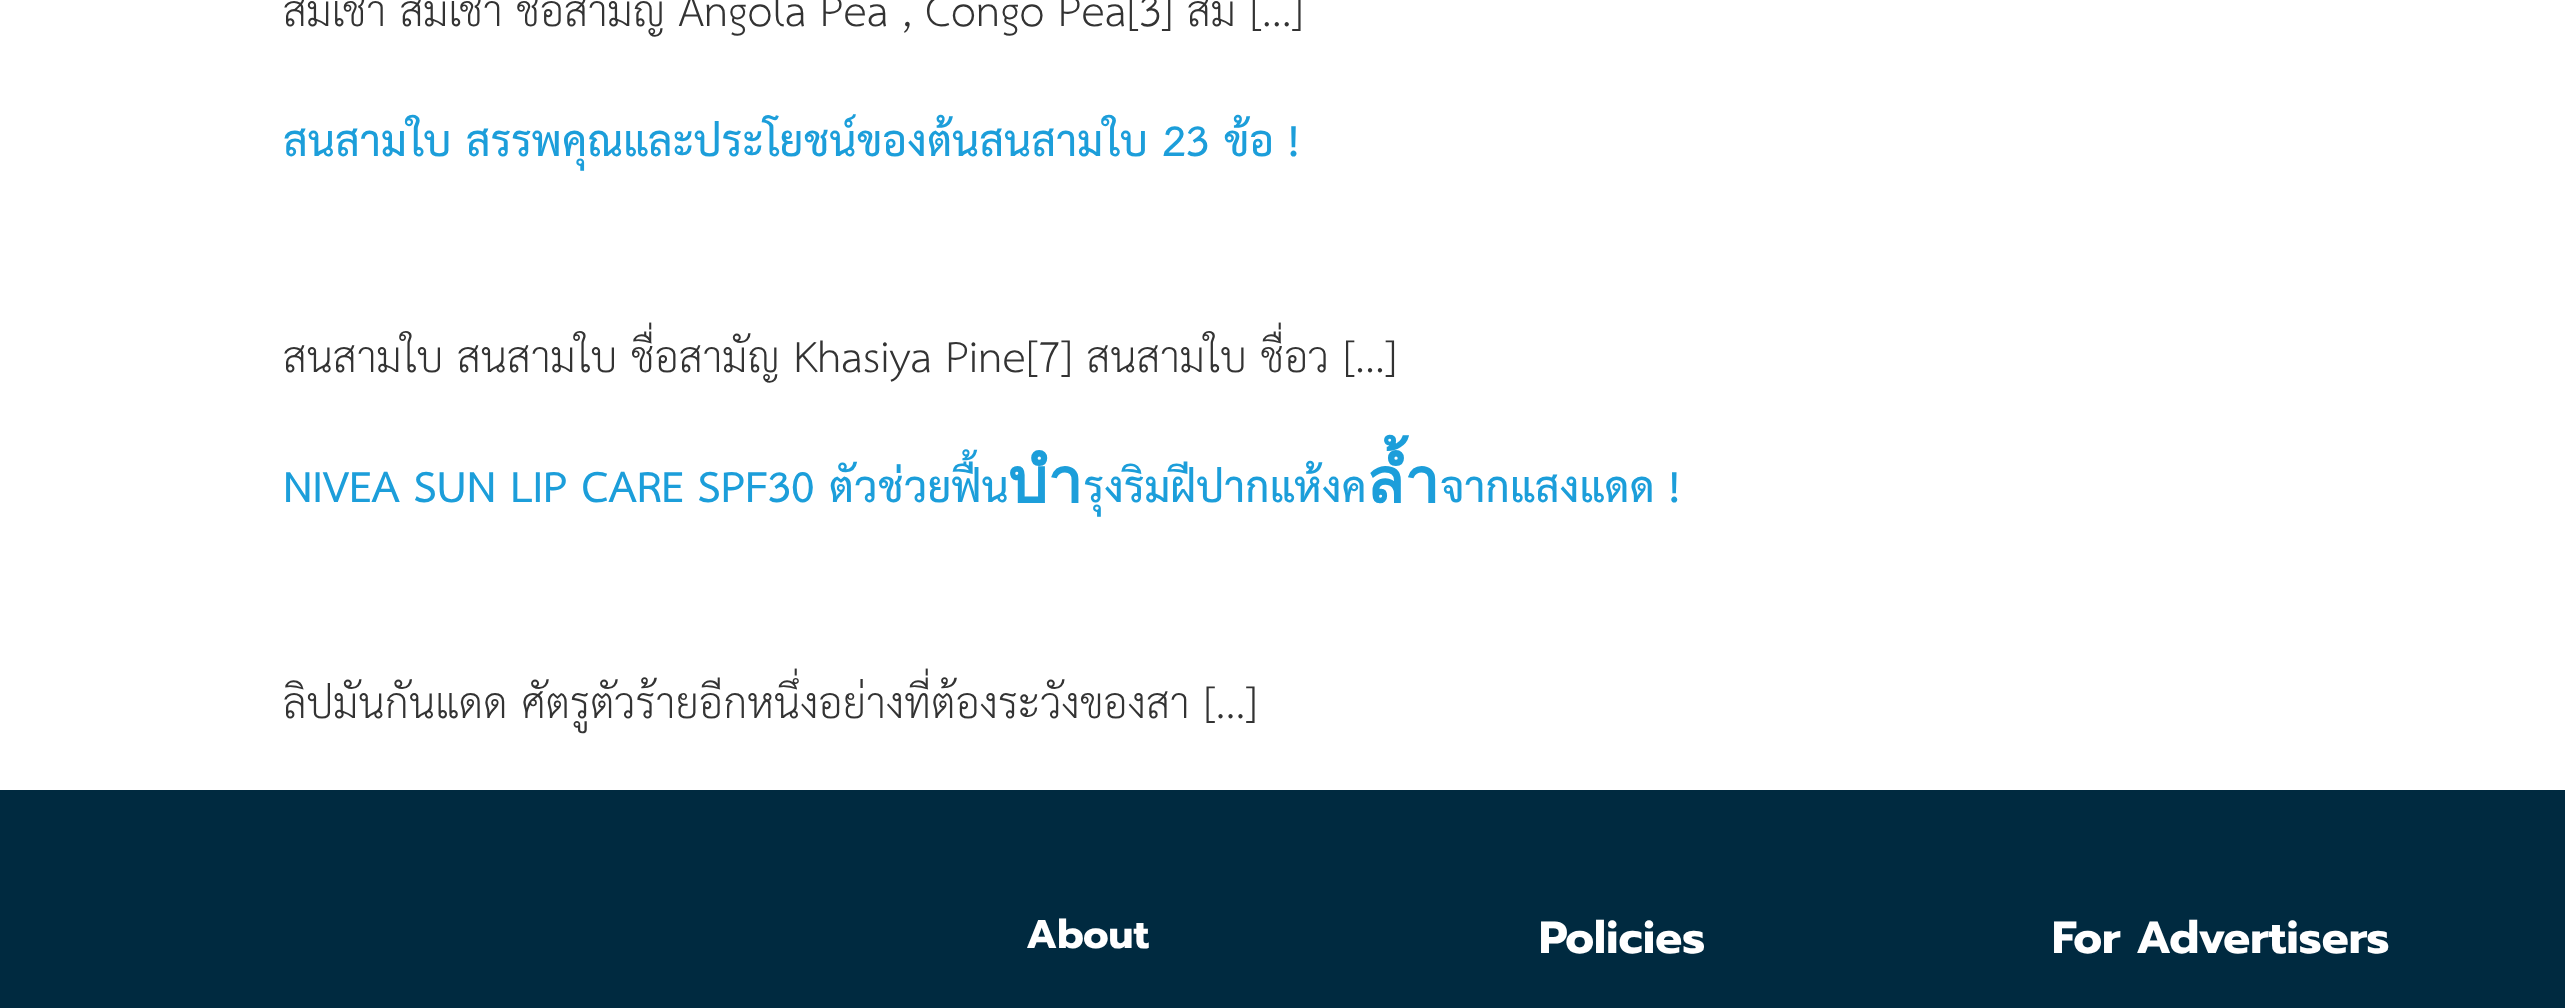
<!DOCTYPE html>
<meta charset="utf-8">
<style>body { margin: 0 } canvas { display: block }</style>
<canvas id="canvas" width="2565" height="1008"></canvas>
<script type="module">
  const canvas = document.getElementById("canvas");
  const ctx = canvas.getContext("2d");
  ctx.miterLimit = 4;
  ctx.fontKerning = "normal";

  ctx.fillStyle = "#ffffff";
  ctx.fillRect(0, 0, 2565, 1008);
  ctx.font = "62.5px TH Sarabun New";
  ctx.fillStyle = "#333333";
  ctx.fillText("ส้มเช้า ส้มเช้า ชื่อสามัญ Angola Pea , Congo Pea[3] ส้ม […]", 283, 26);
  ctx.font = "bold 62.5px TH Sarabun New";
  ctx.fillStyle = "#1c9eda";
  ctx.fillText("สนสามใบ สรรพคุณและประโยชน์ของต้นสนสามใบ 23 ข้อ !", 283, 156);
  ctx.font = "62.5px TH Sarabun New";
  ctx.fillStyle = "#333333";
  ctx.fillText("สนสามใบ สนสามใบ ชื่อสามัญ Khasiya Pine[7] สนสามใบ ชื่อว […]", 283, 372);
  ctx.font = "bold 62.5px TH Sarabun New";
  ctx.fillStyle = "#1c9eda";
  ctx.fillText("NIVEA SUN LIP CARE SPF30 ตัวช่วยฟื้นบำรุงริมฝีปากแห้งคล้ำจากแสงแดด !", 283, 502);
  ctx.font = "62.5px TH Sarabun New";
  ctx.fillStyle = "#333333";
  ctx.fillText("ลิปมันกันแดด ศัตรูตัวร้ายอีกหนึ่งอย่างที่ต้องระวังของสา […]", 283, 718);
  ctx.fillStyle = "#002a40";
  ctx.fillRect(0, 790, 2565, 218);
  ctx.font = "bold 40px Prompt";
  ctx.fillStyle = "#ffffff";
  ctx.fillText("About", 1026, 948);
  ctx.font = "bold 45px Prompt";
  ctx.fillText("Policies", 1539, 953);
  ctx.fillText("For Advertisers", 2052, 953);
</script>
